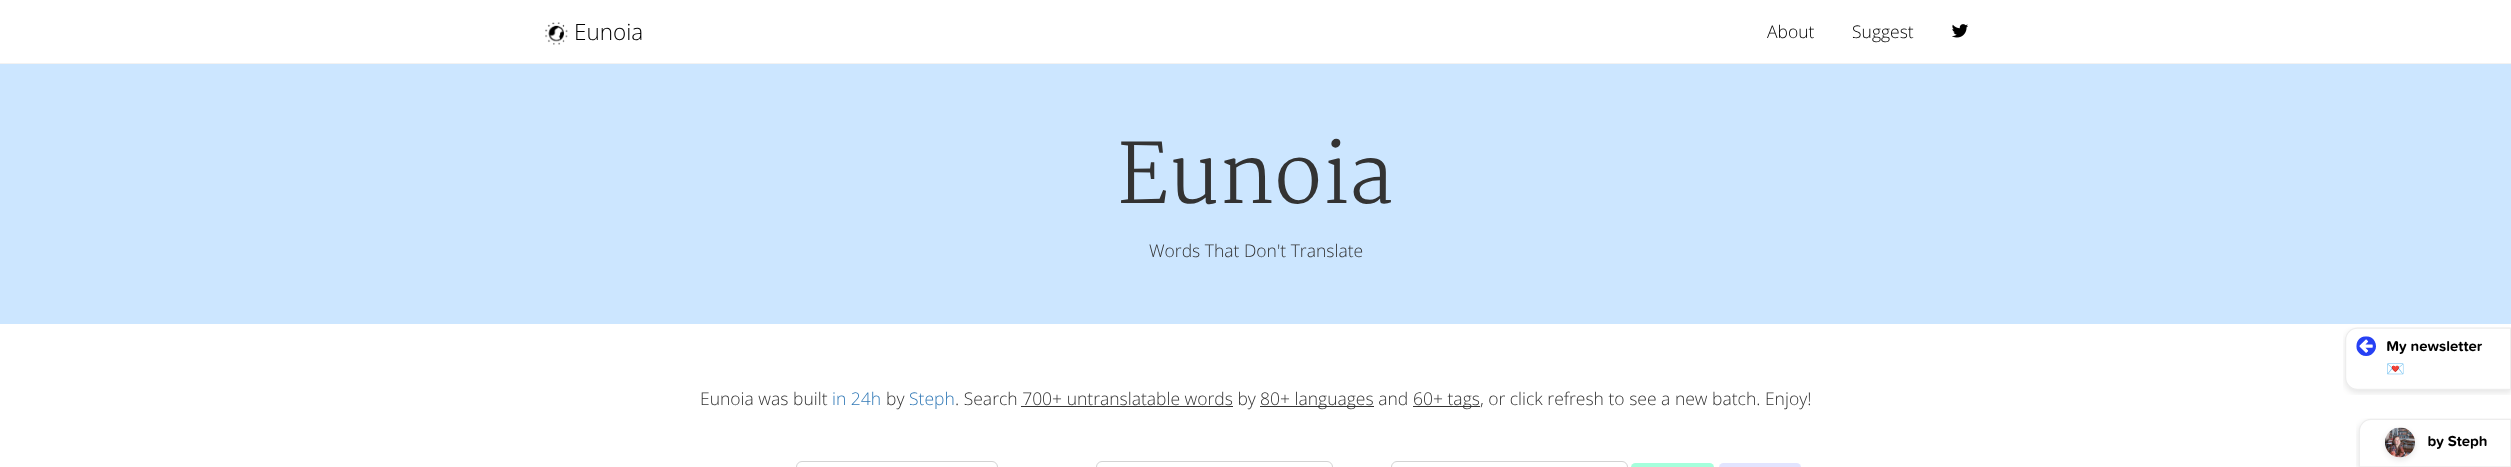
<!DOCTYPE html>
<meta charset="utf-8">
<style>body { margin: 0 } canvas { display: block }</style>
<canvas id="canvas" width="2511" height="467"></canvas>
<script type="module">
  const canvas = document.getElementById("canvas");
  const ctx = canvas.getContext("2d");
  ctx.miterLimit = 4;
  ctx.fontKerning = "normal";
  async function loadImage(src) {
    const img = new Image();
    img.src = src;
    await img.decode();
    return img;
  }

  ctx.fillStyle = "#ffffff";
  ctx.fillRect(0, 0, 2511, 467);
  ctx.fillStyle = "#f2f2f2";
  ctx.fillRect(0, 63, 2511, 1);
  ctx.drawImage(await loadImage("img1.png"), 545, 22, 23, 23);
  ctx.font = "300 22.5px Open Sans";
  ctx.fillStyle = "#000000";
  ctx.fillText("Eunoia", 574, 40);
  ctx.font = "300 17.5px Open Sans";
  ctx.fillText("About", 1767, 38);
  ctx.fillText("Suggest", 1852, 38);
  ctx.drawImage(await loadImage("img2.png"), 1952, 24, 16, 14);
  ctx.fillStyle = "#cce6ff";
  ctx.fillRect(0, 64, 2511, 260);
  ctx.font = "300 81px Martel";
  ctx.fillStyle = "#333333";
  ctx.fillText("Eunoia", 1117, 203);
  ctx.font = "300 17.5px Open Sans";
  ctx.fillText("Words That Don't Translate", 1149, 257);
  ctx.fillText("Eunoia was built", 700, 405);
  ctx.fillStyle = "#337ab7";
  ctx.fillText("in 24h", 832, 405);
  ctx.fillStyle = "#333333";
  ctx.fillText("by", 886, 405);
  ctx.fillStyle = "#337ab7";
  ctx.fillText("Steph", 909, 405);
  ctx.fillStyle = "#333333";
  ctx.fillText(". Search 700+ untranslatable words by", 955, 405);
  ctx.fillRect(1260, 406, 114, 1);
  ctx.fillText("80+ languages and", 1260, 405);
  ctx.fillRect(1413, 406, 67, 1);
  ctx.fillText("60+ tags, or click refresh to see a new batch. Enjoy!", 1413, 405);
  ctx.fillRect(1021, 406, 212, 1);
  ctx.beginPath();
  ctx.roundRect(796.5, 461.5, 201, 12, 5.5);
  ctx.strokeStyle = "#d3d3d3";
  ctx.stroke();
  ctx.beginPath();
  ctx.roundRect(1096.5, 461.5, 236, 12, 5.5);
  ctx.stroke();
  ctx.beginPath();
  ctx.roundRect(1391.5, 461.5, 236, 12, 5.5);
  ctx.stroke();
  ctx.fillStyle = "#a5ffdc";
  ctx.beginPath();
  ctx.roundRect(1631, 463, 83, 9, 5);
  ctx.fill();
  ctx.fillStyle = "#e2e4ff";
  ctx.beginPath();
  ctx.roundRect(1719, 463, 82, 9, 5);
  ctx.fill();
  ctx.drawImage(await loadImage("img3.png"), 2343, 327, 168, 68);
  ctx.drawImage(await loadImage("img4.png"), 2356, 418, 155, 49);
</script>
